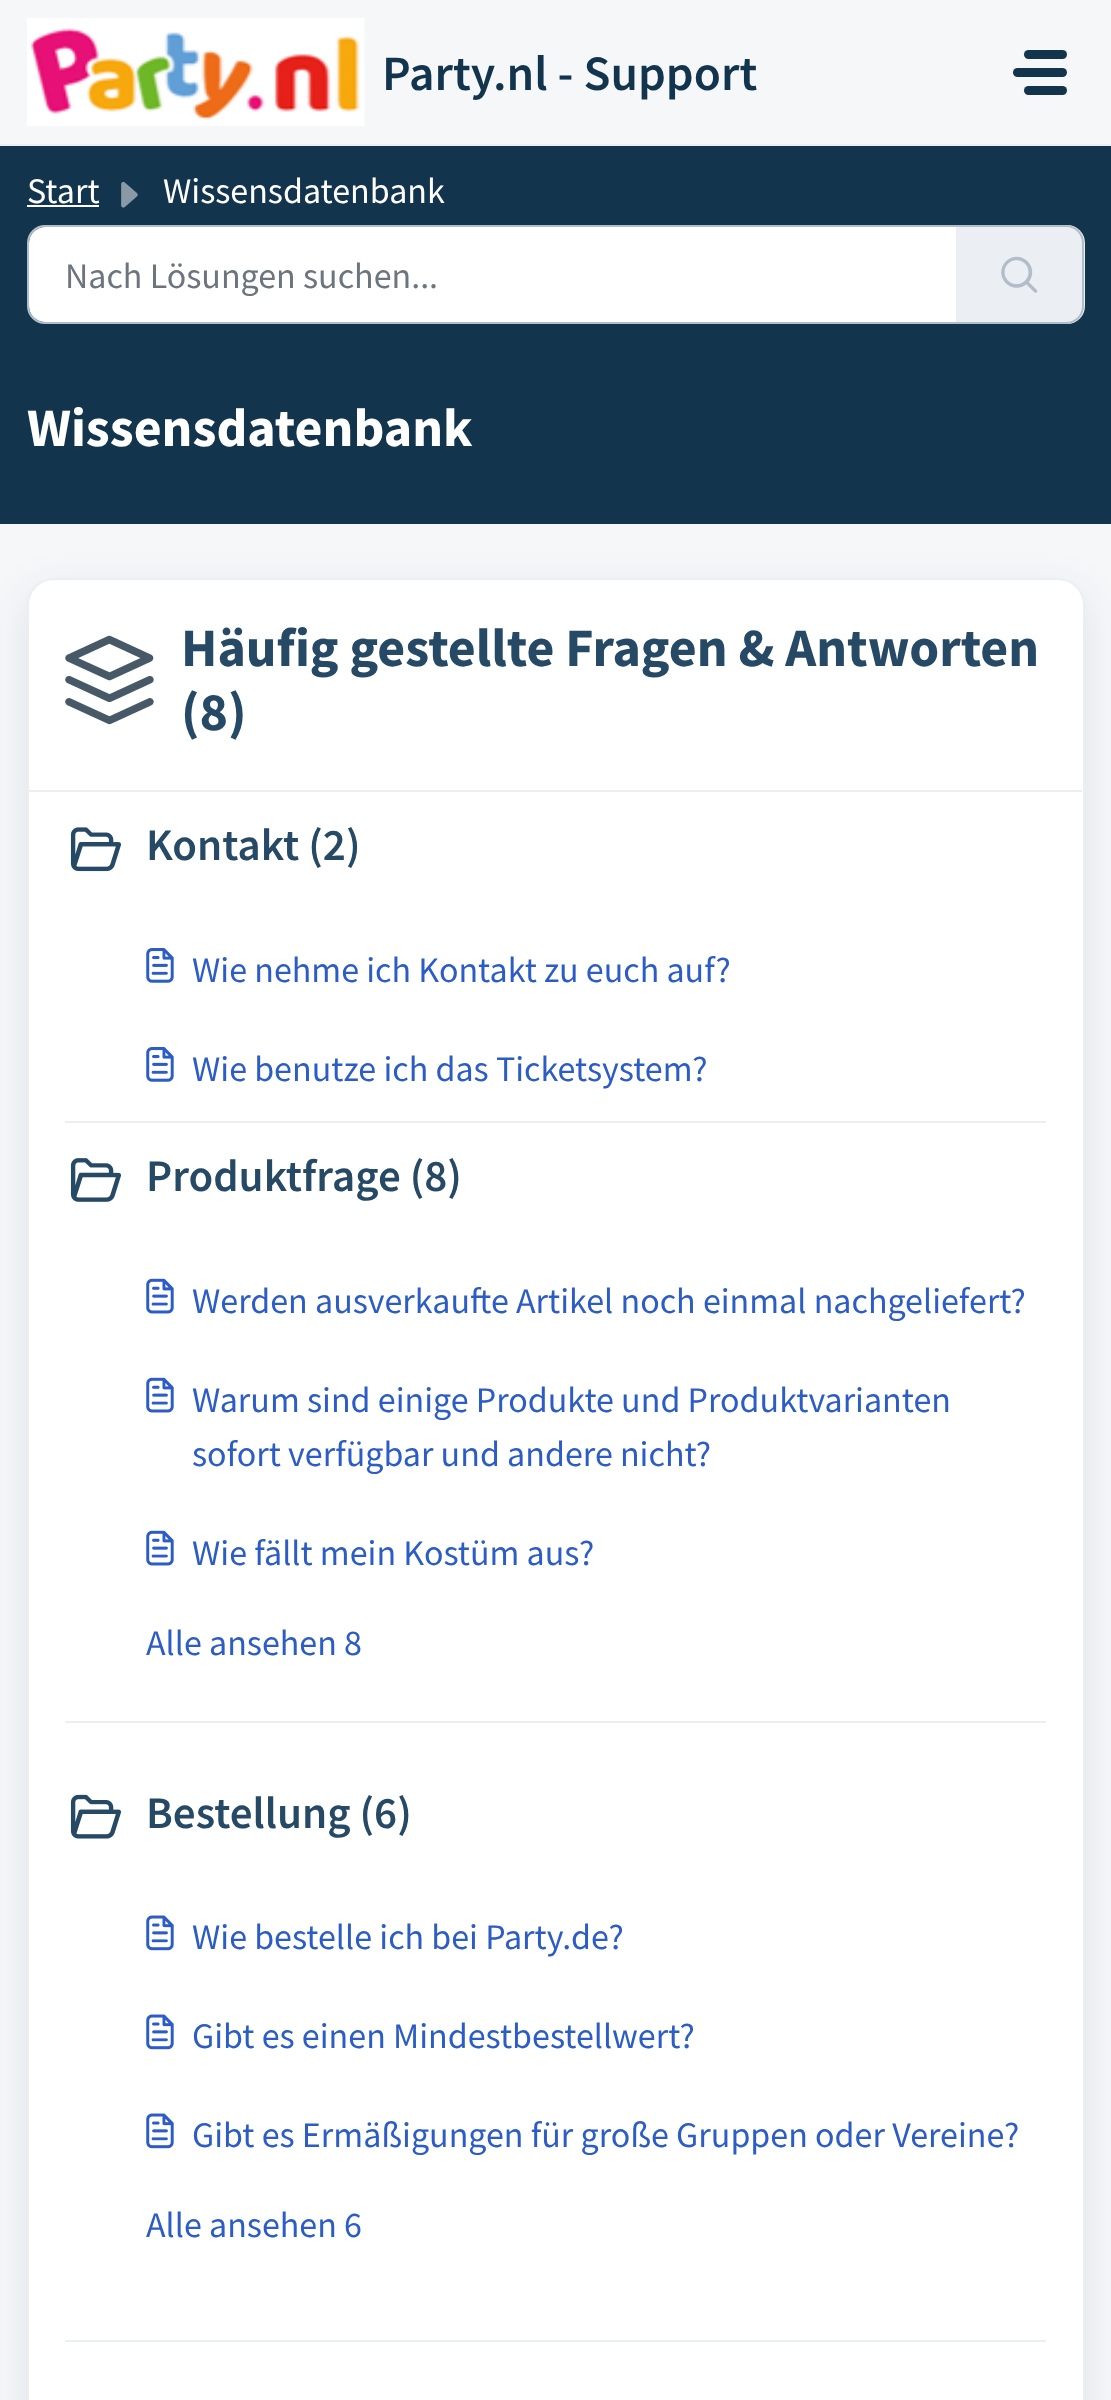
<!DOCTYPE html>
<meta charset="utf-8">
<style>body { margin: 0 } canvas { display: block }</style>
<canvas id="canvas" width="1111" height="2400"></canvas>
<script type="module">
  const canvas = document.getElementById("canvas");
  const ctx = canvas.getContext("2d");
  ctx.miterLimit = 4;
  ctx.fontKerning = "normal";
  async function loadImage(src) {
    const img = new Image();
    img.src = src;
    await img.decode();
    return img;
  }

  ctx.fillStyle = "#f5f7f9";
  ctx.fillRect(0, 0, 1111, 2400);
  ctx.fillStyle = "#ebeff3";
  ctx.fillRect(0, 144, 1111, 2);
  ctx.drawImage(await loadImage("img1.png"), 27, 18, 338, 108);
  ctx.font = "600 49.5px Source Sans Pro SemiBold";
  ctx.fillStyle = "#12344d";
  ctx.fillText("Party.nl - Support", 382, 90);
  ctx.beginPath();
  ctx.roundRect(1024, 50, 43, 9, 4.5);
  ctx.fill();
  ctx.beginPath();
  ctx.roundRect(1013, 68, 54, 9, 4.5);
  ctx.fill();
  ctx.beginPath();
  ctx.roundRect(1024, 86, 43, 9, 4.5);
  ctx.fill();
  ctx.fillRect(0, 146, 1111, 378);
  ctx.font = "36px Source Sans Pro";
  ctx.fillStyle = "#ffffff";
  ctx.fillText("Start", 27, 203);
  ctx.fillRect(27, 205, 72, 2);
  ctx.drawImage(await loadImage("img2.png"), 121, 181, 17, 27);
  ctx.fillText("Wissensdatenbank", 163, 203);
  ctx.beginPath();
  ctx.roundRect(29, 227, 927, 95, [16, 0, 0, 16]);
  ctx.fill();
  ctx.beginPath();
  ctx.roundRect(28, 226, 930, 97, [17, 0, 0, 17]);
  ctx.strokeStyle = "#b1bdc8";
  ctx.lineWidth = 2;
  ctx.stroke();
  ctx.fillStyle = "#6c757d";
  ctx.fillText("Nach Lösungen suchen...", 65, 288);
  ctx.fillStyle = "#ebeff3";
  ctx.beginPath();
  ctx.roundRect(956, 225, 129, 99, [0, 18, 18, 0]);
  ctx.fill();
  ctx.fillStyle = "#b1bdc8";
  ctx.beginPath();
  ctx.moveTo(956, 225);
  ctx.lineTo(1066, 225);
  ctx.bezierCurveTo(1076, 225, 1084, 233, 1084, 243);
  ctx.lineTo(1084, 306);
  ctx.bezierCurveTo(1084, 316, 1076, 324, 1066, 324);
  ctx.lineTo(956, 324);
  ctx.closePath();
  ctx.moveTo(956, 227);
  ctx.lineTo(1066, 227);
  ctx.bezierCurveTo(1075, 227, 1082, 234, 1082, 243);
  ctx.lineTo(1082, 306);
  ctx.bezierCurveTo(1082, 315, 1075, 322, 1066, 322);
  ctx.lineTo(956, 322);
  ctx.closePath();
  ctx.fill("evenodd");
  ctx.drawImage(await loadImage("img3.png"), 1001, 256, 37, 37);
  ctx.font = "bold 54px Source Sans Pro";
  ctx.fillStyle = "#ffffff";
  ctx.fillText("Wissensdatenbank", 27, 446);
  ctx.fillStyle = "rgba(39, 49, 58, 0.1)";
  ctx.filter = "blur(21.5px)";
  ctx.beginPath();
  ctx.roundRect(27, 592, 1058, 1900, 27);
  ctx.fill();
  ctx.filter = "none";
  ctx.fillStyle = "#ffffff";
  ctx.beginPath();
  ctx.roundRect(28, 579, 1056, 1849, 26);
  ctx.fill();
  ctx.strokeStyle = "#ebeff3";
  ctx.stroke();
  ctx.fillStyle = "#ebeff3";
  ctx.fillRect(29, 790, 1053, 2);
  ctx.drawImage(await loadImage("img4.png"), 65, 635, 89, 90);
  ctx.fillStyle = "#264966";
  ctx.fillText("Häufig gestellte Fragen & Antworten", 181, 666);
  ctx.fillText("(8)", 181, 730);
  ctx.fillStyle = "#ebeff3";
  ctx.fillRect(65, 1121, 981, 2);
  ctx.drawImage(await loadImage("img5.png"), 70, 827, 51, 45);
  ctx.font = "600 45px Source Sans Pro SemiBold";
  ctx.fillStyle = "#264966";
  ctx.fillText("Kontakt (2)", 146, 860);
  ctx.drawImage(await loadImage("img6.png"), 146, 948, 28, 35);
  ctx.font = "36px Source Sans Pro";
  ctx.fillStyle = "#2c5cc5";
  ctx.fillText("Wie nehme ich Kontakt zu euch auf?", 192, 982);
  ctx.drawImage(await loadImage("img6.png"), 146, 1047, 28, 35);
  ctx.fillText("Wie benutze ich das Ticketsystem?", 192, 1081);
  ctx.fillStyle = "#ebeff3";
  ctx.fillRect(65, 1721, 981, 2);
  ctx.drawImage(await loadImage("img7.png"), 70, 1158, 51, 44);
  ctx.font = "600 45px Source Sans Pro SemiBold";
  ctx.fillStyle = "#264966";
  ctx.fillText("Produktfrage (8)", 146, 1191);
  ctx.drawImage(await loadImage("img8.png"), 146, 1278, 28, 36);
  ctx.font = "36px Source Sans Pro";
  ctx.fillStyle = "#2c5cc5";
  ctx.fillText("Werden ausverkaufte Artikel noch einmal nachgeliefert?", 192, 1313);
  ctx.drawImage(await loadImage("img8.png"), 146, 1377, 28, 36);
  ctx.fillText("Warum sind einige Produkte und Produktvarianten", 192, 1412);
  ctx.fillText("sofort verfügbar und andere nicht?", 192, 1466);
  ctx.drawImage(await loadImage("img8.png"), 146, 1530, 28, 36);
  ctx.fillText("Wie fällt mein Kostüm aus?", 192, 1565);
  ctx.fillText("Alle ansehen 8", 146, 1655);
  ctx.fillStyle = "#ebeff3";
  ctx.fillRect(65, 2340, 981, 2);
  ctx.drawImage(await loadImage("img9.png"), 70, 1794, 51, 45);
  ctx.font = "600 45px Source Sans Pro SemiBold";
  ctx.fillStyle = "#264966";
  ctx.fillText("Bestellung (6)", 146, 1828);
  ctx.drawImage(await loadImage("img10.png"), 146, 1915, 28, 36);
  ctx.font = "36px Source Sans Pro";
  ctx.fillStyle = "#2c5cc5";
  ctx.fillText("Wie bestelle ich bei Party.de?", 192, 1949);
  ctx.drawImage(await loadImage("img10.png"), 146, 2014, 28, 36);
  ctx.fillText("Gibt es einen Mindestbestellwert?", 192, 2048);
  ctx.drawImage(await loadImage("img10.png"), 146, 2113, 28, 36);
  ctx.fillText("Gibt es Ermäßigungen für große Gruppen oder Vereine?", 192, 2147);
  ctx.fillText("Alle ansehen 6", 146, 2237);
</script>
